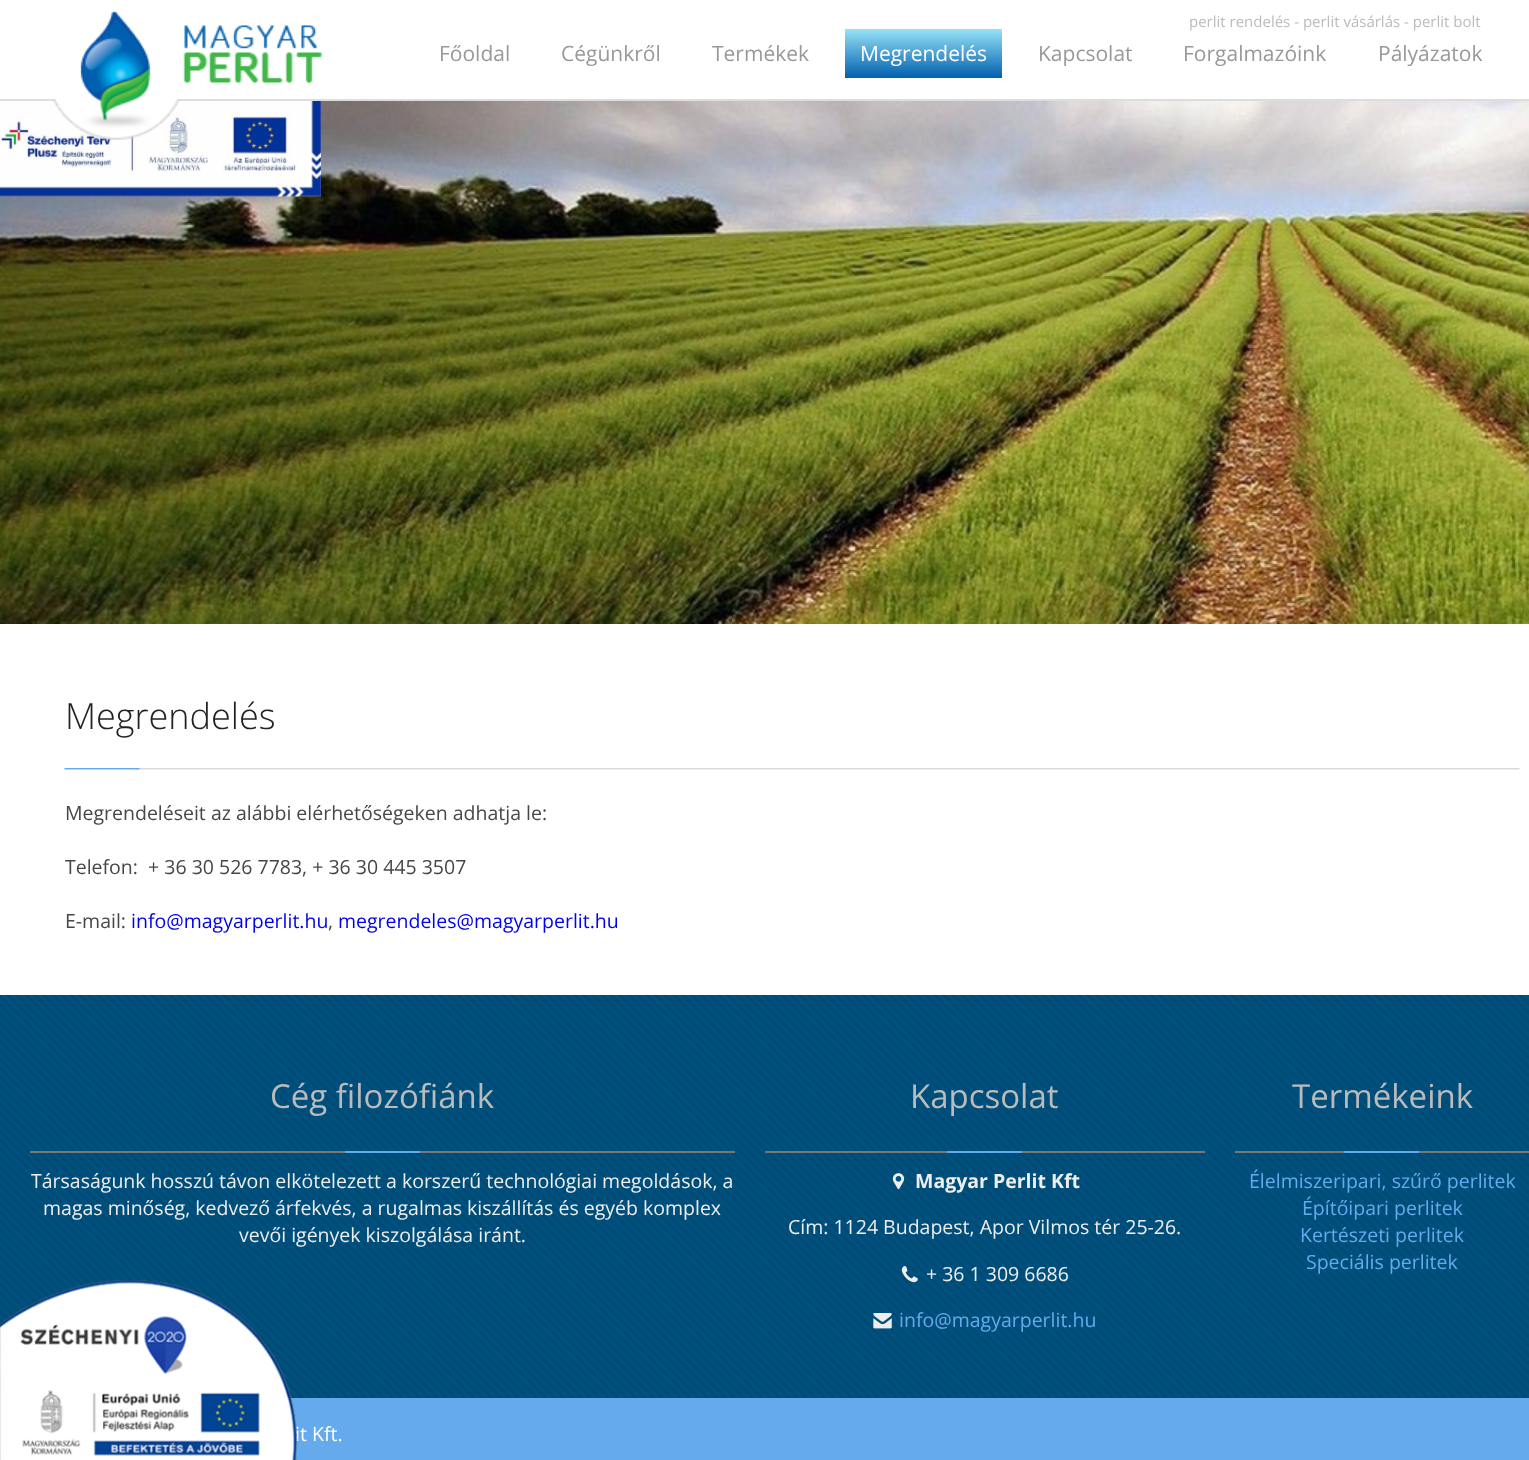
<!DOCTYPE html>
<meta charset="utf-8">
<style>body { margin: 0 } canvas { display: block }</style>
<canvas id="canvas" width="1529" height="1460"></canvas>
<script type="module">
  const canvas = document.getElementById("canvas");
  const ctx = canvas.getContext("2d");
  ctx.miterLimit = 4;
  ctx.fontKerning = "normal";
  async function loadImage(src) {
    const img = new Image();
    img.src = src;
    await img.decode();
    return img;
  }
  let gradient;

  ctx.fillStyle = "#ffffff";
  ctx.fillRect(0, 0, 1529, 1460);
  ctx.fillStyle = "#dddddd";
  ctx.fillRect(0, 99, 1529, 2);
  ctx.drawImage(await loadImage("img2.png"), 0, 101, 1529, 523);
  ctx.drawImage(await loadImage("img3.png"), 0, 101, 321, 96);
  ctx.drawImage(await loadImage("img1.png"), 53, 11, 270, 129);
  ctx.font = "15px Open Sans";
  ctx.fillStyle = "#bbbbbb";
  ctx.fillText("perlit rendelés - perlit vásárlás - perlit bolt", 1189, 27);
  ctx.font = "21px Open Sans";
  ctx.fillStyle = "#999999";
  ctx.fillText("Főoldal", 439, 61);
  ctx.fillText("Cégünkről", 561, 61);
  ctx.fillText("Termékek", 712, 61);
  gradient = ctx.createLinearGradient(923, 28, 923, 78);
  gradient.addColorStop(0, "#9ae5f9");
  gradient.addColorStop(1, "#005fae");
  ctx.fillStyle = gradient;
  ctx.fillRect(845, 29, 157, 49);
  ctx.fillStyle = "#ffffff";
  ctx.fillText("Megrendelés", 860, 61);
  ctx.fillStyle = "#999999";
  ctx.fillText("Kapcsolat", 1038, 61);
  ctx.fillText("Forgalmazóink", 1183, 61);
  ctx.fillText("Pályázatok", 1378, 61);
  ctx.drawImage(await loadImage("img4.png"), 64, 768, 1456, 2);
  ctx.font = "300 36px Open Sans";
  ctx.fillStyle = "#222222";
  ctx.fillText("Megrendelés", 65, 729);
  ctx.font = "19.5px Open Sans";
  ctx.fillStyle = "#474747";
  ctx.fillText("Megrendeléseit az alábbi elérhetőségeken adhatja le:", 65, 820);
  ctx.fillText("Telefon:  + 36 30 526 7783, + 36 30 445 3507", 65, 874);
  ctx.fillText("E-mail:", 65, 928);
  ctx.fillStyle = "#0000ee";
  ctx.fillText("info@magyarperlit.hu", 131, 928);
  ctx.fillStyle = "#474747";
  ctx.fillText(",", 328, 928);
  ctx.fillStyle = "#0000ee";
  ctx.fillText("megrendeles@magyarperlit.hu", 338, 928);
  ctx.fillStyle = "#005280";
  ctx.fillRect(0, 995, 1529, 403);
  ctx.drawImage(await loadImage("img5.png"), 0, 994, 1529, 404);
  ctx.font = "33px Open Sans";
  ctx.fillStyle = "#bbbbbb";
  ctx.fillText("Cég filozófiánk", 270, 1108);
  ctx.fillStyle = "#777777";
  ctx.fillRect(30, 1151, 705, 2);
  ctx.fillStyle = "#66aaee";
  ctx.fillRect(345, 1151, 75, 2);
  ctx.font = "19.5px Open Sans";
  ctx.fillStyle = "#eeeeee";
  ctx.fillText("Társaságunk hosszú távon elkötelezett a korszerű technológiai megoldások, a", 31, 1188);
  ctx.fillText("magas minőség, kedvező árfekvés, a rugalmas kiszállítás és egyéb komplex", 43, 1215);
  ctx.fillText("vevői igények kiszolgálása iránt.", 239, 1242);
  ctx.font = "33px Open Sans";
  ctx.fillStyle = "#bbbbbb";
  ctx.fillText("Kapcsolat", 910, 1108);
  ctx.fillStyle = "#777777";
  ctx.fillRect(765, 1151, 440, 2);
  ctx.fillStyle = "#66aaee";
  ctx.fillRect(947, 1151, 75, 2);
  ctx.drawImage(await loadImage("img6.png"), 892, 1173, 13, 17);
  ctx.font = "bold 19.5px Open Sans";
  ctx.fillStyle = "#eeeeee";
  ctx.fillText("Magyar Perlit Kft", 915, 1188);
  ctx.font = "19.5px Open Sans";
  ctx.fillText("Cím: 1124 Budapest, Apor Vilmos tér 25-26.", 788, 1234);
  ctx.drawImage(await loadImage("img7.png"), 901, 1266, 17, 17);
  ctx.fillText("+ 36 1 309 6686", 926, 1281);
  ctx.drawImage(await loadImage("img8.png"), 873, 1313, 19, 16);
  ctx.fillStyle = "#66aaee";
  ctx.fillText("info@magyarperlit.hu", 899, 1327);
  ctx.font = "33px Open Sans";
  ctx.fillStyle = "#bbbbbb";
  ctx.fillText("Termékeink", 1292, 1108);
  ctx.fillStyle = "#777777";
  ctx.fillRect(1235, 1151, 294, 2);
  ctx.fillStyle = "#66aaee";
  ctx.fillRect(1344, 1151, 75, 2);
  ctx.font = "19.5px Open Sans";
  ctx.fillText("Élelmiszeripari, szűrő perlitek", 1249, 1188);
  ctx.fillText("Építőipari perlitek", 1302, 1215);
  ctx.fillText("Kertészeti perlitek", 1300, 1242);
  ctx.fillText("Speciális perlitek", 1306, 1269);
  ctx.fillRect(287, 1398, 1242, 62);
  ctx.fillStyle = "#ffffff";
  ctx.fillText("it Kft.", 295, 1441);
  ctx.drawImage(await loadImage("img9.png"), 0, 1279, 298, 181);
</script>
